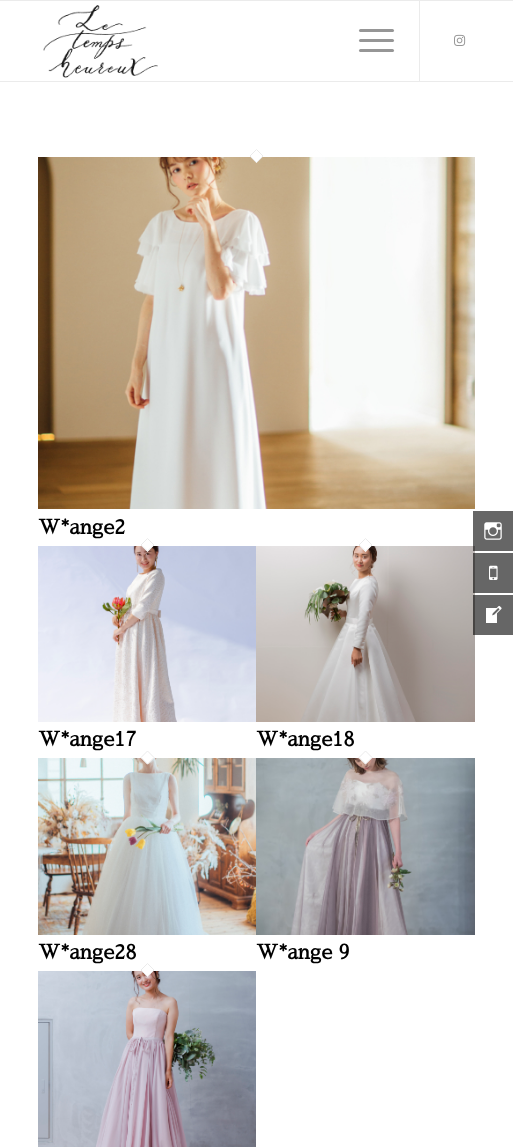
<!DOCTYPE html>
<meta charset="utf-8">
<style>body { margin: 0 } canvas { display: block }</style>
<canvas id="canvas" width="513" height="1148"></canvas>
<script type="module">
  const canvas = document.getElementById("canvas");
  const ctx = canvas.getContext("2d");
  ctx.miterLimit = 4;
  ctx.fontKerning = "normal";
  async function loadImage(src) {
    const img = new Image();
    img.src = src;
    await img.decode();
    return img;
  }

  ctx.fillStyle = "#ffffff";
  ctx.fillRect(0, 0, 513, 1148);
  ctx.fillStyle = "#ebebeb";
  ctx.fillRect(0, 0, 513, 1);
  ctx.fillRect(0, 81, 513, 1);
  ctx.drawImage(await loadImage("img1.png"), 43, 5, 115, 73);
  ctx.fillRect(419, 1, 1, 80);
  ctx.fillStyle = "#969696";
  ctx.beginPath();
  ctx.roundRect(359, 39, 35, 3, 1.5);
  ctx.fill();
  ctx.beginPath();
  ctx.roundRect(359, 29, 35, 3, 1.5);
  ctx.fill();
  ctx.beginPath();
  ctx.roundRect(359, 49, 35, 3, 1.5);
  ctx.fill();
  ctx.drawImage(await loadImage("img2.png"), 454, 34, 12, 12);
  ctx.drawImage(await loadImage("img3.png"), 38, 157, 437, 352);
  ctx.fillStyle = "#ffffff";
  ctx.beginPath();
  ctx.moveTo(256.5, 149);
  ctx.lineTo(263.5, 156);
  ctx.lineTo(256.5, 163);
  ctx.lineTo(249.5, 156);
  ctx.closePath();
  ctx.fill();
  ctx.beginPath();
  ctx.moveTo(256.5, 149.5);
  ctx.lineTo(263, 156);
  ctx.lineTo(256.5, 162.5);
  ctx.lineTo(250, 156);
  ctx.closePath();
  ctx.strokeStyle = "#ebebeb";
  ctx.stroke();
  ctx.font = "bold 20px Sawarabi Mincho";
  ctx.fillStyle = "#000000";
  ctx.fillText("W*ange2", 38, 534);
  ctx.drawImage(await loadImage("img4.png"), 38, 546, 218, 176);
  ctx.fillStyle = "#ffffff";
  ctx.beginPath();
  ctx.moveTo(147.5, 537.5);
  ctx.lineTo(154.5, 545);
  ctx.lineTo(147.5, 552);
  ctx.lineTo(140.5, 545);
  ctx.closePath();
  ctx.fill();
  ctx.beginPath();
  ctx.moveTo(147.5, 538.5);
  ctx.lineTo(154, 545);
  ctx.lineTo(147.5, 551);
  ctx.lineTo(141, 545);
  ctx.closePath();
  ctx.stroke();
  ctx.fillStyle = "#000000";
  ctx.fillText("W*ange17", 38, 746);
  ctx.drawImage(await loadImage("img5.png"), 256, 546, 219, 176);
  ctx.fillStyle = "#ffffff";
  ctx.beginPath();
  ctx.moveTo(365.5, 537.5);
  ctx.lineTo(372.5, 545);
  ctx.lineTo(365.5, 552);
  ctx.lineTo(358.5, 545);
  ctx.closePath();
  ctx.fill();
  ctx.beginPath();
  ctx.moveTo(365.5, 538.5);
  ctx.lineTo(372, 545);
  ctx.lineTo(365.5, 551);
  ctx.lineTo(359, 545);
  ctx.closePath();
  ctx.stroke();
  ctx.fillStyle = "#000000";
  ctx.fillText("W*ange18", 256, 746);
  ctx.drawImage(await loadImage("img6.png"), 38, 758, 218, 177);
  ctx.fillStyle = "#ffffff";
  ctx.beginPath();
  ctx.moveTo(147.5, 750.5);
  ctx.lineTo(154.5, 757.5);
  ctx.lineTo(147.5, 764.5);
  ctx.lineTo(140.5, 757.5);
  ctx.closePath();
  ctx.fill();
  ctx.beginPath();
  ctx.moveTo(147.5, 751);
  ctx.lineTo(154, 757.5);
  ctx.lineTo(147.5, 764);
  ctx.lineTo(141, 757.5);
  ctx.closePath();
  ctx.stroke();
  ctx.fillStyle = "#000000";
  ctx.fillText("W*ange28", 38, 959);
  ctx.drawImage(await loadImage("img7.png"), 256, 758, 219, 177);
  ctx.fillStyle = "#ffffff";
  ctx.beginPath();
  ctx.moveTo(365.5, 750.5);
  ctx.lineTo(372.5, 757.5);
  ctx.lineTo(365.5, 764.5);
  ctx.lineTo(358.5, 757.5);
  ctx.closePath();
  ctx.fill();
  ctx.beginPath();
  ctx.moveTo(365.5, 751);
  ctx.lineTo(372, 757.5);
  ctx.lineTo(365.5, 764);
  ctx.lineTo(359, 757.5);
  ctx.closePath();
  ctx.stroke();
  ctx.fillStyle = "#000000";
  ctx.fillText("W*ange 9", 256, 959);
  ctx.drawImage(await loadImage("img8.png"), 38, 971, 218, 176);
  ctx.fillStyle = "#ffffff";
  ctx.beginPath();
  ctx.moveTo(147.5, 963);
  ctx.lineTo(154.5, 970);
  ctx.lineTo(147.5, 977);
  ctx.lineTo(140.5, 970);
  ctx.closePath();
  ctx.fill();
  ctx.beginPath();
  ctx.moveTo(147.5, 963.5);
  ctx.lineTo(154, 970);
  ctx.lineTo(147.5, 976.5);
  ctx.lineTo(141, 970);
  ctx.closePath();
  ctx.stroke();
  ctx.fillStyle = "rgba(0, 0, 0, 0.6)";
  ctx.fillRect(473, 511, 40, 40);
  ctx.drawImage(await loadImage("img9.png"), 484, 522, 18, 18);
  ctx.fillRect(473, 553, 40, 40);
  ctx.drawImage(await loadImage("img10.png"), 489, 565, 9, 15);
  ctx.fillRect(473, 595, 40, 40);
  ctx.drawImage(await loadImage("img11.png"), 486, 605, 16, 18);
</script>
